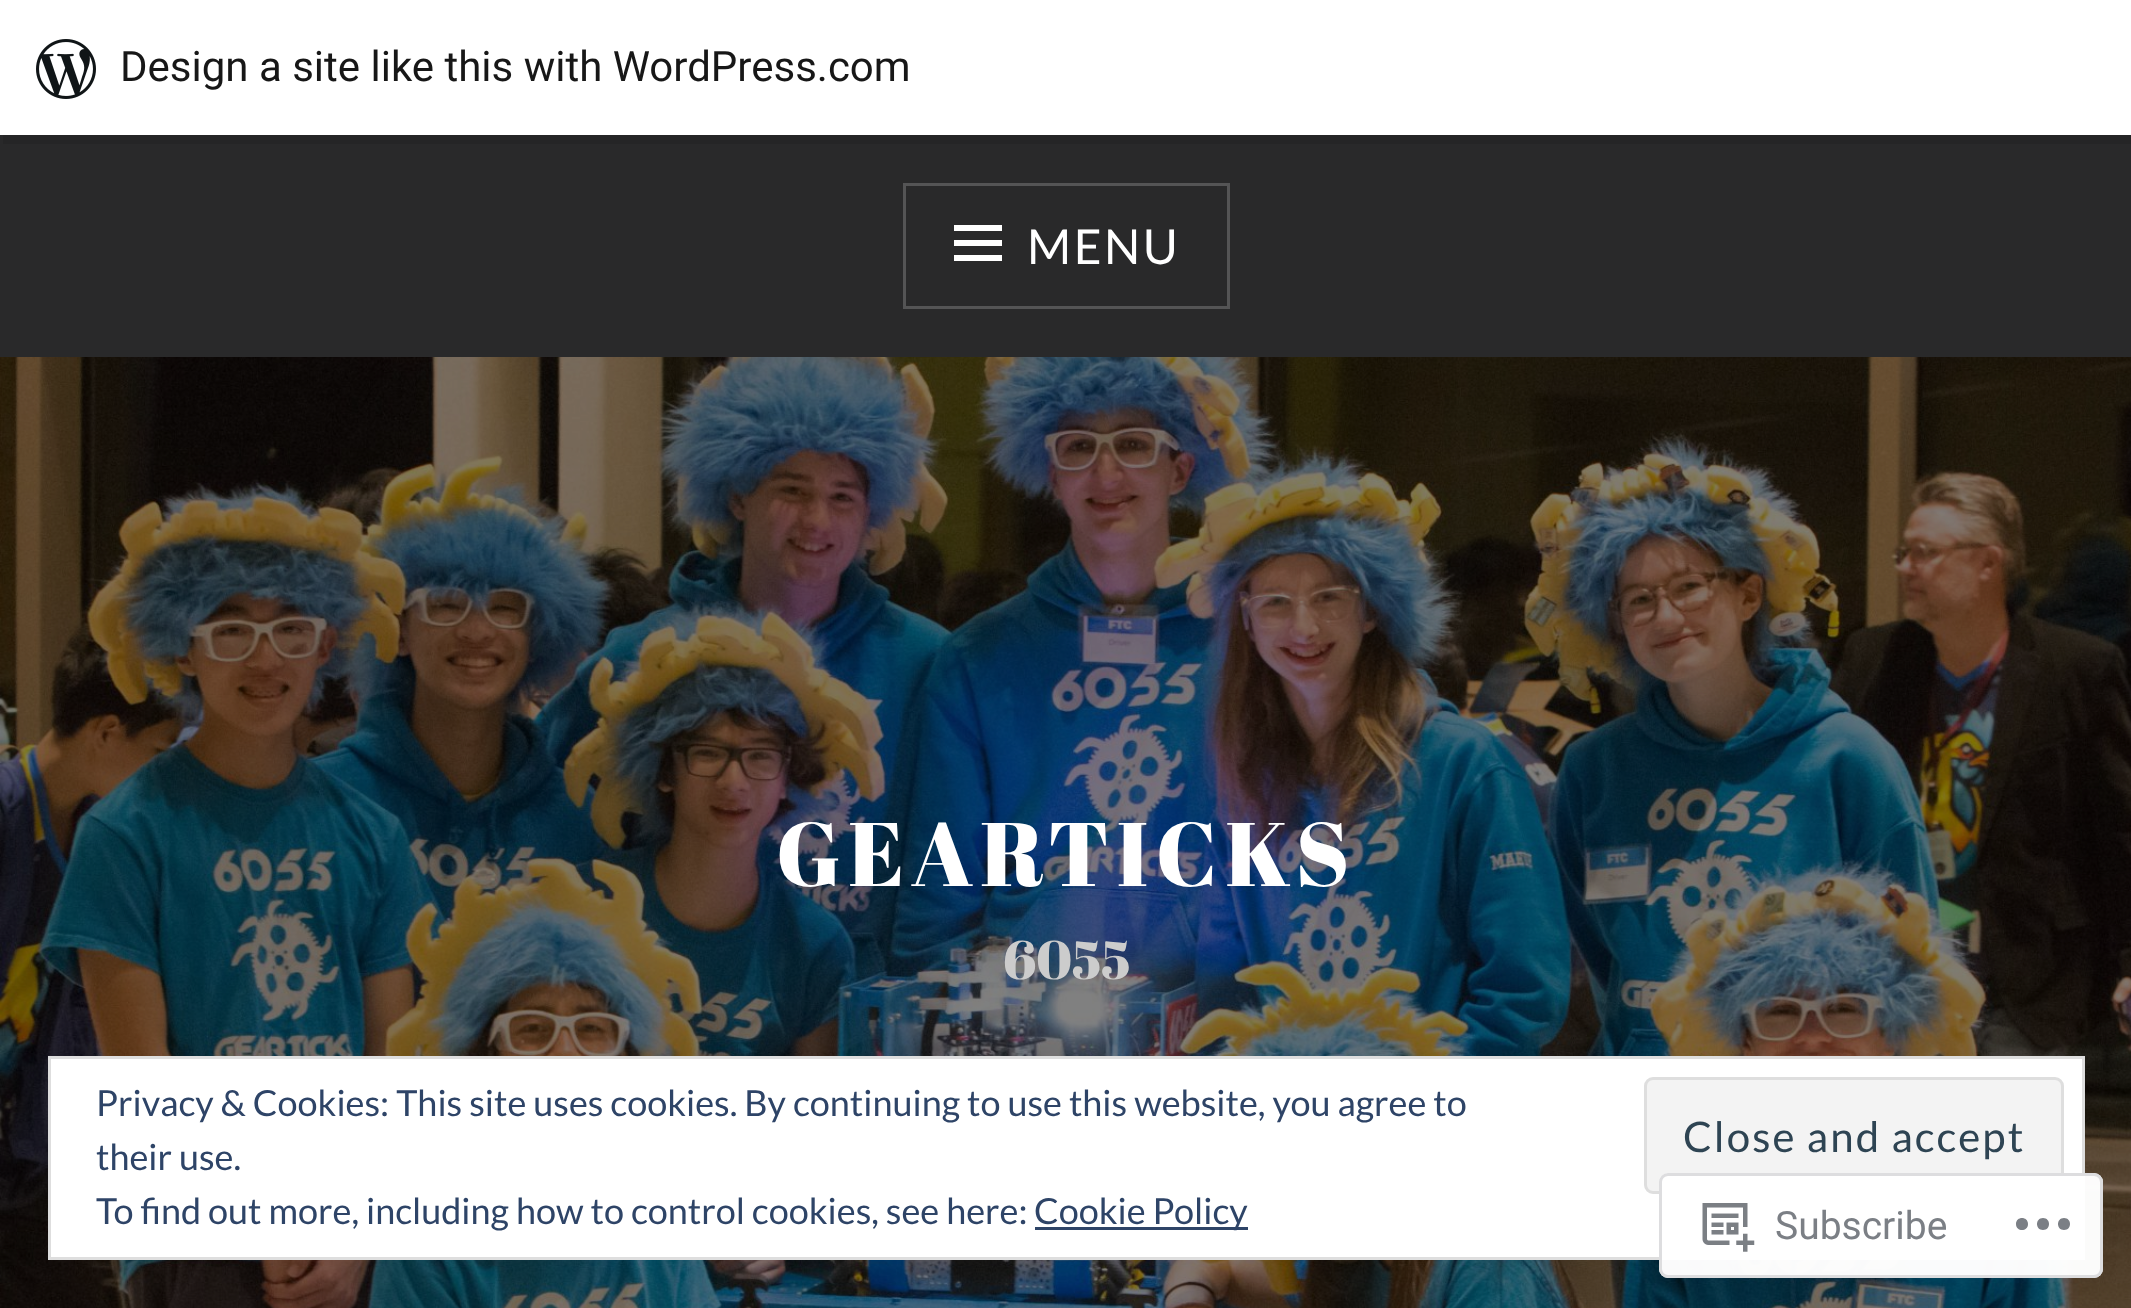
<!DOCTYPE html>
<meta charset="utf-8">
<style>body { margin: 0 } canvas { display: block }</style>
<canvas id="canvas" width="2131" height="1308"></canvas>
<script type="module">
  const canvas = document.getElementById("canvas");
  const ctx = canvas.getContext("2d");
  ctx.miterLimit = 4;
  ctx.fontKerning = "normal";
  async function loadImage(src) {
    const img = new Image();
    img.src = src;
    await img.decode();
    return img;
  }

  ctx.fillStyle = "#ffffff";
  ctx.fillRect(0, 0, 2131, 1308);
  ctx.fillStyle = "#29292a";
  ctx.fillRect(0, 135, 2131, 222);
  ctx.fillStyle = "#252526";
  ctx.beginPath();
  ctx.moveTo(3, 135);
  ctx.lineTo(3, 144);
  ctx.lineTo(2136, 144);
  ctx.lineTo(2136, 9);
  ctx.lineTo(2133, 9);
  ctx.lineTo(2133, 135);
  ctx.closePath();
  ctx.fill();
  ctx.drawImage(await loadImage("img1.png"), 36, 39, 60, 60);
  ctx.font = "42px Roboto";
  ctx.fillStyle = "#171717";
  ctx.fillText("Design a site like this with WordPress.com", 120, 81);
  ctx.strokeStyle = "#545455";
  ctx.lineWidth = 3;
  ctx.strokeRect(904.5, 184.5, 324, 123);
  ctx.fillStyle = "#ffffff";
  ctx.beginPath();
  ctx.moveTo(954, 261);
  ctx.lineTo(954, 255);
  ctx.lineTo(1002, 255);
  ctx.lineTo(1002, 261);
  ctx.closePath();
  ctx.moveTo(954, 225);
  ctx.lineTo(1002, 225);
  ctx.lineTo(1002, 231);
  ctx.lineTo(954, 231);
  ctx.closePath();
  ctx.moveTo(954, 246);
  ctx.lineTo(954, 240);
  ctx.lineTo(1002, 240);
  ctx.lineTo(1002, 246);
  ctx.closePath();
  ctx.fill();
  ctx.letterSpacing = "2.5px";
  ctx.font = "48px Lato";
  ctx.fillText("MENU", 1027, 264);
  ctx.drawImage(await loadImage("img2.png"), 0, 357, 2131, 951);
  ctx.letterSpacing = "7.25px";
  ctx.font = "90px Abril Fatface";
  ctx.fillText("GEARTICKS", 776, 886);
  ctx.letterSpacing = "0px";
  ctx.font = "54px Abril Fatface";
  ctx.fillStyle = "#cccccc";
  ctx.fillText("6055", 1003, 979);
  ctx.fillStyle = "#ffffff";
  ctx.beginPath();
  ctx.rect(49.5, 1057.5, 2034, 201);
  ctx.fill();
  ctx.strokeStyle = "#dedede";
  ctx.stroke();
  ctx.font = "36px Lato";
  ctx.fillStyle = "#2e4467";
  ctx.fillText("Privacy & Cookies: This site uses cookies. By continuing to use this website, you agree to", 96, 1116);
  ctx.fillText("their use.", 96, 1170);
  ctx.fillStyle = "#f3f3f3";
  ctx.beginPath();
  ctx.roundRect(1645.5, 1078.5, 417, 114, 7.5);
  ctx.fill();
  ctx.stroke();
  ctx.letterSpacing = "2.1px";
  ctx.font = "42px Lato";
  ctx.fillStyle = "#2e4453";
  ctx.fillText("Close and accept", 1683, 1152);
  ctx.letterSpacing = "0px";
  ctx.font = "36px Lato";
  ctx.fillStyle = "#2e4467";
  ctx.fillText("To find out more, including how to control cookies, see here:", 96, 1224);
  ctx.fillRect(1035, 1227, 213, 3);
  ctx.fillText("Cookie Policy", 1034, 1224);
  ctx.fillStyle = "rgba(255, 255, 255, 0.98)";
  ctx.beginPath();
  ctx.roundRect(1659, 1173, 444, 105, 9);
  ctx.fill();
  ctx.beginPath();
  ctx.roundRect(1660.5, 1174.5, 441, 102, 7.5);
  ctx.strokeStyle = "rgba(220, 220, 222, 0.98)";
  ctx.stroke();
  ctx.drawImage(await loadImage("img3.png"), 1702, 1203, 53, 49);
  ctx.font = "39px Roboto";
  ctx.fillStyle = "#7b7f85";
  ctx.fillText("Subscribe", 1775, 1239);
  ctx.beginPath();
  ctx.moveTo(2028, 1224);
  ctx.bezierCurveTo(2028, 1232, 2016, 1232, 2016, 1224);
  ctx.bezierCurveTo(2016, 1216, 2028, 1216, 2028, 1224);
  ctx.closePath();
  ctx.moveTo(2064, 1218);
  ctx.bezierCurveTo(2056, 1218, 2056, 1230, 2064, 1230);
  ctx.bezierCurveTo(2072, 1230, 2072, 1218, 2064, 1218);
  ctx.closePath();
  ctx.moveTo(2043, 1218);
  ctx.bezierCurveTo(2035, 1218, 2035, 1230, 2043, 1230);
  ctx.bezierCurveTo(2051, 1230, 2051, 1218, 2043, 1218);
  ctx.closePath();
  ctx.fill();
</script>
